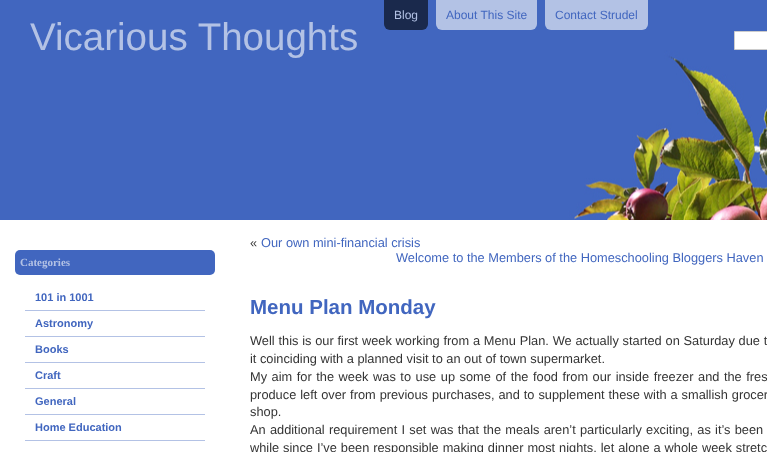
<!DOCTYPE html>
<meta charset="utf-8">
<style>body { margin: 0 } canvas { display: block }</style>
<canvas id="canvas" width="767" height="452"></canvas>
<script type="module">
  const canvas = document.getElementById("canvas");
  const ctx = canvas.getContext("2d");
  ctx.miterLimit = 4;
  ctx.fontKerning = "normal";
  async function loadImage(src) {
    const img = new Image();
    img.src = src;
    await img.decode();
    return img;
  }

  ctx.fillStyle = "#ffffff";
  ctx.fillRect(0, 0, 767, 452);
  ctx.drawImage(await loadImage("img1.png"), 0, 0, 767, 220);
  ctx.fillStyle = "#1a294c";
  ctx.beginPath();
  ctx.roundRect(384, 0, 44, 30, [0, 0, 6, 6]);
  ctx.fill();
  ctx.font = "12px Liberation Sans";
  ctx.fillStyle = "#b3c2e5";
  ctx.fillText("Blog", 394, 19);
  ctx.beginPath();
  ctx.roundRect(436, 0, 101, 30, [0, 0, 6, 6]);
  ctx.fill();
  ctx.fillStyle = "#4166bf";
  ctx.fillText("About This Site", 446, 19);
  ctx.fillStyle = "#b3c2e5";
  ctx.beginPath();
  ctx.roundRect(545, 0, 103, 30, [0, 0, 6, 6]);
  ctx.fill();
  ctx.fillStyle = "#4166bf";
  ctx.fillText("Contact Strudel", 555, 19);
  ctx.font = "38.5px Liberation Sans";
  ctx.fillStyle = "#b3c2e5";
  ctx.fillText("Vicarious Thoughts", 30, 50);
  ctx.fillStyle = "#ffffff";
  ctx.beginPath();
  ctx.rect(734.5, 31.5, 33, 18);
  ctx.fill();
  ctx.strokeStyle = "#cccccc";
  ctx.stroke();
  ctx.fillStyle = "#4166bf";
  ctx.beginPath();
  ctx.roundRect(15, 250, 200, 25, 5);
  ctx.fill();
  ctx.font = "bold 11px Liberation Serif";
  ctx.fillStyle = "#b3c2e5";
  ctx.fillText("Categories", 20, 266);
  ctx.fillRect(25, 310, 180, 1);
  ctx.font = "bold 11px Liberation Sans";
  ctx.fillStyle = "#4166bf";
  ctx.fillText("101 in 1001", 35, 301);
  ctx.fillStyle = "#b3c2e5";
  ctx.fillRect(25, 336, 180, 1);
  ctx.fillStyle = "#4166bf";
  ctx.fillText("Astronomy", 35, 327);
  ctx.fillStyle = "#b3c2e5";
  ctx.fillRect(25, 362, 180, 1);
  ctx.fillStyle = "#4166bf";
  ctx.fillText("Books", 35, 353);
  ctx.fillStyle = "#b3c2e5";
  ctx.fillRect(25, 388, 180, 1);
  ctx.fillStyle = "#4166bf";
  ctx.fillText("Craft", 35, 379);
  ctx.fillStyle = "#b3c2e5";
  ctx.fillRect(25, 414, 180, 1);
  ctx.fillStyle = "#4166bf";
  ctx.fillText("General", 35, 405);
  ctx.fillStyle = "#b3c2e5";
  ctx.fillRect(25, 440, 180, 1);
  ctx.fillStyle = "#4166bf";
  ctx.fillText("Home Education", 35, 431);
  ctx.font = "12.8px Liberation Sans";
  ctx.fillStyle = "#333333";
  ctx.fillText("«", 250, 247);
  ctx.fillStyle = "#4166bf";
  ctx.fillText("Our own mini-financial crisis", 261, 247);
  ctx.fillText("Welcome to the Members of the Homeschooling Bloggers Haven", 396, 262);
  ctx.font = "bold 20.5px Liberation Sans";
  ctx.fillText("Menu Plan Monday", 250, 314);
  ctx.wordSpacing = "0.25px";
  ctx.font = "12.8px Liberation Sans";
  ctx.fillStyle = "#333333";
  ctx.fillText("Well this is our first week working from a Menu Plan. We actually started on Saturday due t", 250, 345);
  ctx.wordSpacing = "0px";
  ctx.fillText("it coinciding with a planned visit to an out of town supermarket.", 250, 363);
  ctx.wordSpacing = "1px";
  ctx.fillText("My aim for the week was to use up some of the food from our inside freezer and the fres", 250, 381);
  ctx.wordSpacing = "0.4px";
  ctx.fillText("produce left over from previous purchases, and to supplement these with a smallish grocer", 250, 399);
  ctx.wordSpacing = "0px";
  ctx.fillText("shop.", 250, 416);
  ctx.wordSpacing = "0.7px";
  ctx.fillText("An additional requirement I set was that the meals aren’t particularly exciting, as it’s been", 250, 434);
  ctx.wordSpacing = "0.4px";
  ctx.fillText("while since I’ve been responsible making dinner most nights, let alone a whole week stretc", 250, 452);
</script>
